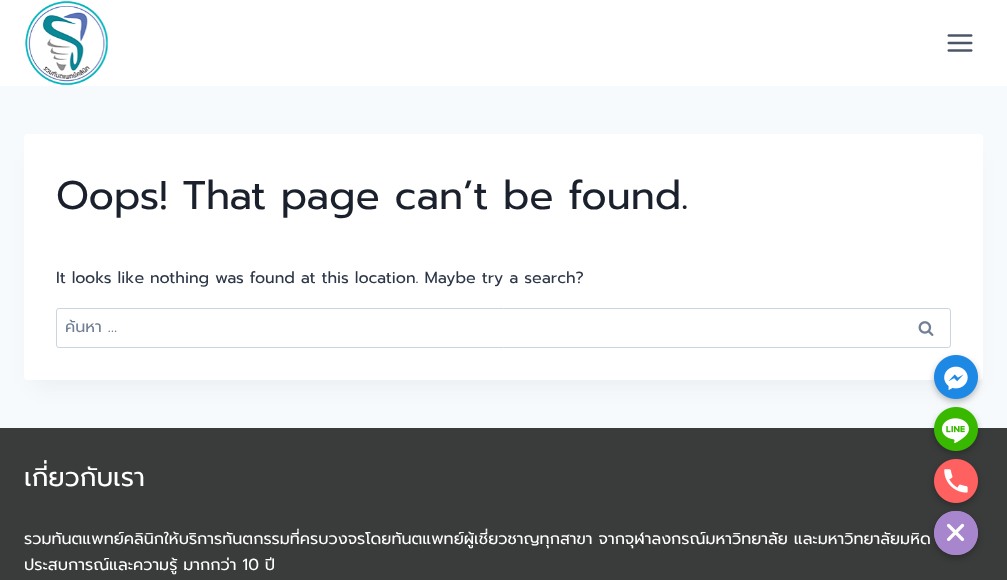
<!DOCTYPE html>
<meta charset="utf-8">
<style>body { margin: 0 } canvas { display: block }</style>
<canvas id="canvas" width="1007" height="580"></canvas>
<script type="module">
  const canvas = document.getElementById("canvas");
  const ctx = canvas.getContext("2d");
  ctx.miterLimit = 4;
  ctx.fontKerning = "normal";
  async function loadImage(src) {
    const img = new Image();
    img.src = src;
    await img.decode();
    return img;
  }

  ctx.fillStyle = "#f7fafc";
  ctx.fillRect(0, 0, 1007, 580);
  ctx.fillStyle = "#ffffff";
  ctx.fillRect(0, 0, 1007, 86);
  ctx.drawImage(await loadImage("img1.png"), 25, 1, 83, 85);
  ctx.drawImage(await loadImage("img2.png"), 947, 34, 26, 18);
  ctx.fillStyle = "rgba(0, 0, 0, 0.05)";
  ctx.filter = "blur(12.5px)";
  ctx.beginPath();
  ctx.rect(34, 159, 939, 226);
  ctx.fill();
  ctx.filter = "none";
  ctx.fillStyle = "#ffffff";
  ctx.beginPath();
  ctx.roundRect(24, 134, 959, 246, 4);
  ctx.fill();
  ctx.font = "40px Prompt";
  ctx.fillStyle = "#1a202c";
  ctx.fillText("Oops! That page can’t be found.", 56, 209);
  ctx.font = "16px Prompt";
  ctx.fillStyle = "#2d3748";
  ctx.fillText("It looks like nothing was found at this location. Maybe try a search?", 56, 283);
  ctx.beginPath();
  ctx.roundRect(56.5, 308.5, 894, 39, 2.5);
  ctx.strokeStyle = "#cbd5e0";
  ctx.stroke();
  ctx.save();
  ctx.beginPath();
  ctx.rect(65, 315, 810, 24);
  ctx.clip();
  ctx.fillStyle = "#718096";
  ctx.fillText("ค้นหา …", 65, 332);
  ctx.restore();
  ctx.drawImage(await loadImage("img3.png"), 918, 321, 16, 15);
  ctx.fillStyle = "#3a3b3b";
  ctx.fillRect(0, 428, 1007, 152);
  ctx.font = "26px Prompt";
  ctx.fillStyle = "#ffffff";
  ctx.fillText("เกี่ยวกับเรา", 24, 486);
  ctx.font = "16px Prompt";
  ctx.fillText("รวมทันตแพทย์คลินิกให้บริการทันตกรรมที่ครบวงจรโดยทันตแพทย์ผู้เชี่ยวชาญทุกสาขา จากจุฬาลงกรณ์มหาวิทยาลัย และมหาวิทยาลัยมหิด", 24, 544);
  ctx.fillText("ประสบการณ์และความรู้ มากกว่า 10 ปี", 24, 570);
  ctx.fillStyle = "rgba(0, 0, 0, 0.25)";
  ctx.filter = "blur(3px)";
  ctx.beginPath();
  ctx.roundRect(934, 358, 44, 44, 22);
  ctx.fill();
  ctx.filter = "none";
  ctx.drawImage(await loadImage("img4.png"), 934, 355, 44, 44);
  ctx.filter = "blur(3px)";
  ctx.beginPath();
  ctx.roundRect(934, 410, 44, 44, 22);
  ctx.fill();
  ctx.filter = "none";
  ctx.drawImage(await loadImage("img5.png"), 934, 407, 44, 44);
  ctx.filter = "blur(3px)";
  ctx.beginPath();
  ctx.roundRect(934, 462, 44, 44, 22);
  ctx.fill();
  ctx.filter = "none";
  ctx.drawImage(await loadImage("img6.png"), 934, 459, 44, 44);
  ctx.filter = "blur(3px)";
  ctx.beginPath();
  ctx.roundRect(934, 514, 44, 44, 22);
  ctx.fill();
  ctx.filter = "none";
  ctx.fillStyle = "#a886cd";
  ctx.beginPath();
  ctx.moveTo(956, 555);
  ctx.bezierCurveTo(927, 555, 927, 511, 956, 511);
  ctx.bezierCurveTo(985, 511, 985, 555, 956, 555);
  ctx.closePath();
  ctx.fill();
  ctx.drawImage(await loadImage("img7.png"), 934, 511, 44, 44);
</script>
